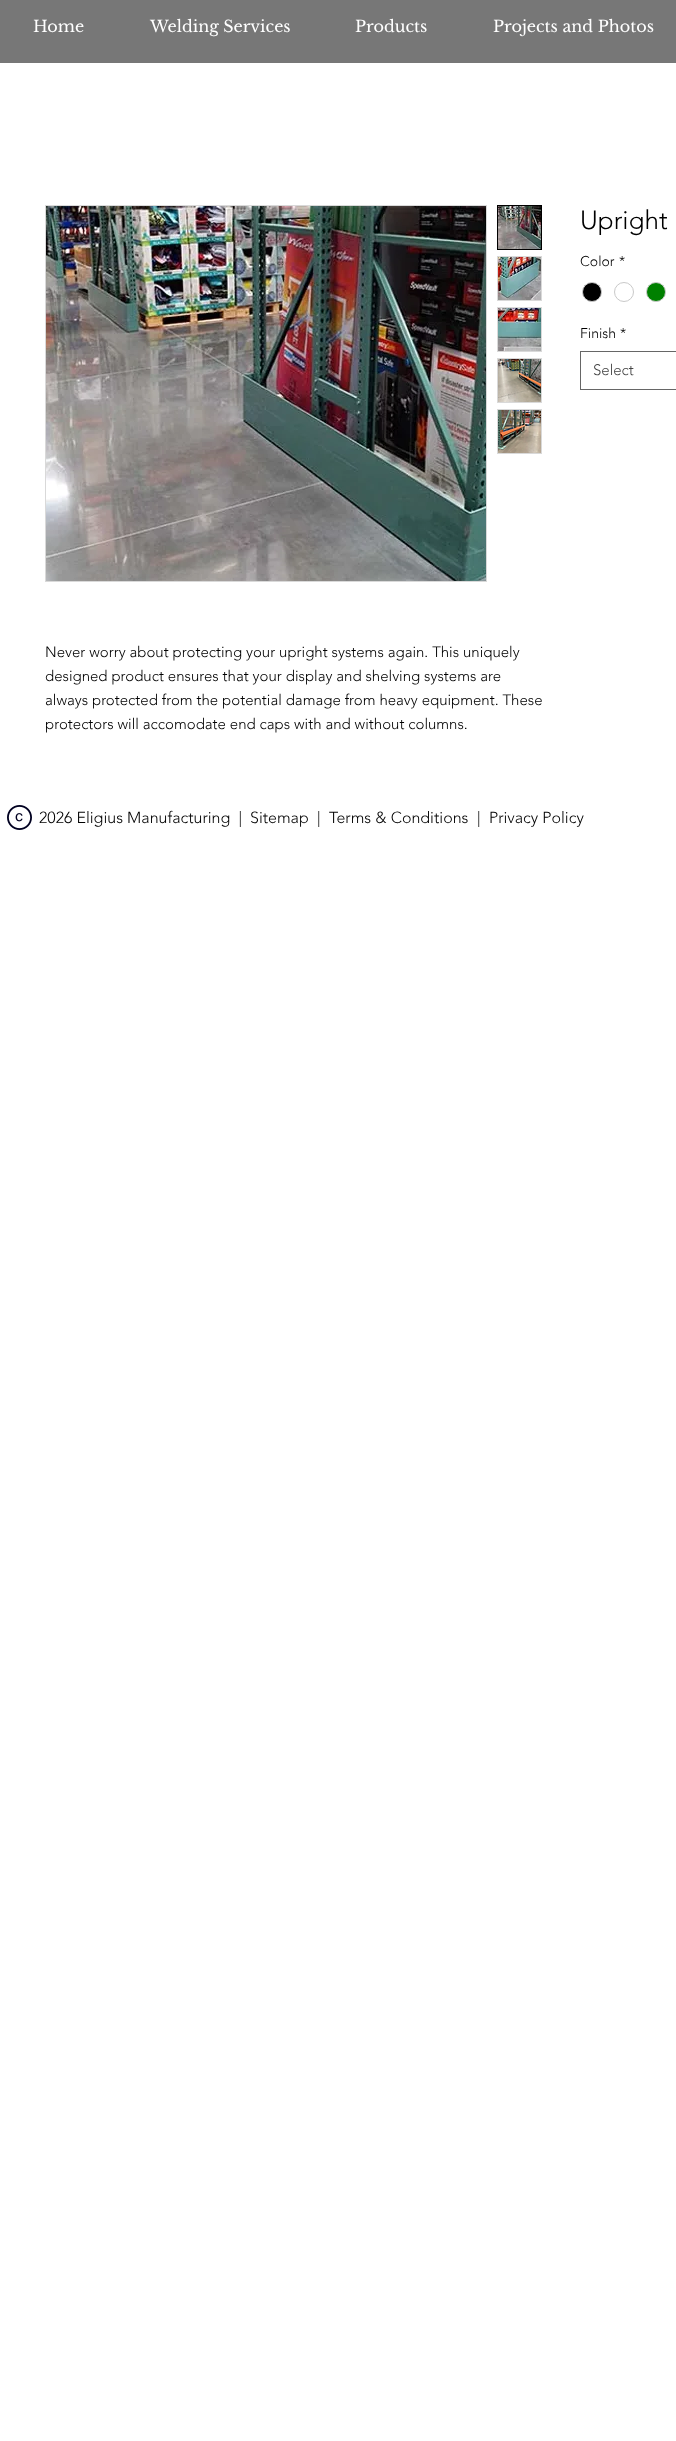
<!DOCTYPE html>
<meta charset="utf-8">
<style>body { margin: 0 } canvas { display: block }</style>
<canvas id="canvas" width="676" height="2441"></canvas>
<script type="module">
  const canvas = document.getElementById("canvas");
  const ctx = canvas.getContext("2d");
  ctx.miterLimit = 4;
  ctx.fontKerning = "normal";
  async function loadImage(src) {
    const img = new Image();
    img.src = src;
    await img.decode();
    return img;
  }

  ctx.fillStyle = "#ffffff";
  ctx.fillRect(0, 0, 676, 2441);
  ctx.fillStyle = "#777777";
  ctx.fillRect(0, 0, 676, 63);
  ctx.font = "16px Libre Baskerville";
  ctx.fillStyle = "#ffffff";
  ctx.fillText("Home", 33, 32);
  ctx.fillText("Welding Services", 150, 32);
  ctx.fillText("Products", 355, 32);
  ctx.fillText("Projects and Photos", 493, 32);
  ctx.font = "300 26px 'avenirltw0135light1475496'";
  ctx.fillStyle = "#000000";
  ctx.fillText("Upright", 580, 229);
  ctx.font = "300 14px 'avenirltw0135light1475496'";
  ctx.fillText("Color", 580, 266);
  ctx.fillText("*", 619, 266);
  ctx.beginPath();
  ctx.arc(592, 292, 9.5, 0, Math.PI * 2);
  ctx.fill();
  ctx.strokeStyle = "#c9c9c9";
  ctx.stroke();
  ctx.beginPath();
  ctx.arc(624, 292, 9.5, 0, Math.PI * 2);
  ctx.stroke();
  ctx.fillStyle = "#008000";
  ctx.beginPath();
  ctx.arc(656, 292, 9.5, 0, Math.PI * 2);
  ctx.fill();
  ctx.stroke();
  ctx.fillStyle = "#000000";
  ctx.fillText("Finish", 580, 338);
  ctx.fillText("*", 620, 338);
  ctx.strokeStyle = "#666666";
  ctx.strokeRect(580.5, 351.5, 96, 38);
  ctx.font = "300 15px 'avenirltw0135light1475496'";
  ctx.fillStyle = "#444444";
  ctx.fillText("Select", 593, 375);
  ctx.strokeStyle = "#d9d9d9";
  ctx.strokeRect(45.5, 205.5, 441, 376);
  ctx.drawImage(await loadImage("img1.png"), 46, 206, 440, 375);
  ctx.strokeStyle = "#000000";
  ctx.strokeRect(497.5, 205.5, 44, 44);
  ctx.drawImage(await loadImage("img2.png"), 498, 206, 43, 43);
  ctx.fillStyle = "#d9d9d9";
  ctx.fillRect(497, 256, 45, 45);
  ctx.drawImage(await loadImage("img3.png"), 498, 257, 43, 43);
  ctx.fillRect(497, 307, 45, 45);
  ctx.drawImage(await loadImage("img4.png"), 498, 308, 43, 43);
  ctx.fillRect(497, 358, 45, 45);
  ctx.drawImage(await loadImage("img5.png"), 498, 359, 43, 43);
  ctx.fillRect(497, 409, 45, 45);
  ctx.drawImage(await loadImage("img6.png"), 498, 410, 43, 43);
  ctx.fillStyle = "#000000";
  ctx.fillText("Never worry about protecting your upright systems again. This uniquely", 45, 657);
  ctx.fillText("designed product ensures that your display and shelving systems are", 45, 681);
  ctx.fillText("always protected from the potential damage from heavy equipment. These", 45, 705);
  ctx.fillText("protectors will accomodate end caps with and without columns.", 45, 729);
  ctx.drawImage(await loadImage("img7.png"), 7, 805, 25, 25);
  ctx.font = "300 16px 'avenirltw0135light1475496'";
  ctx.fillText("2026 Eligius Manufacturing  |", 39, 823);
  ctx.fillText("Sitemap", 250, 823);
  ctx.fillText("|", 317, 823);
  ctx.fillText("Terms & Conditions", 329, 823);
  ctx.fillText("|", 477, 823);
  ctx.fillText("Privacy Policy", 489, 823);
</script>
